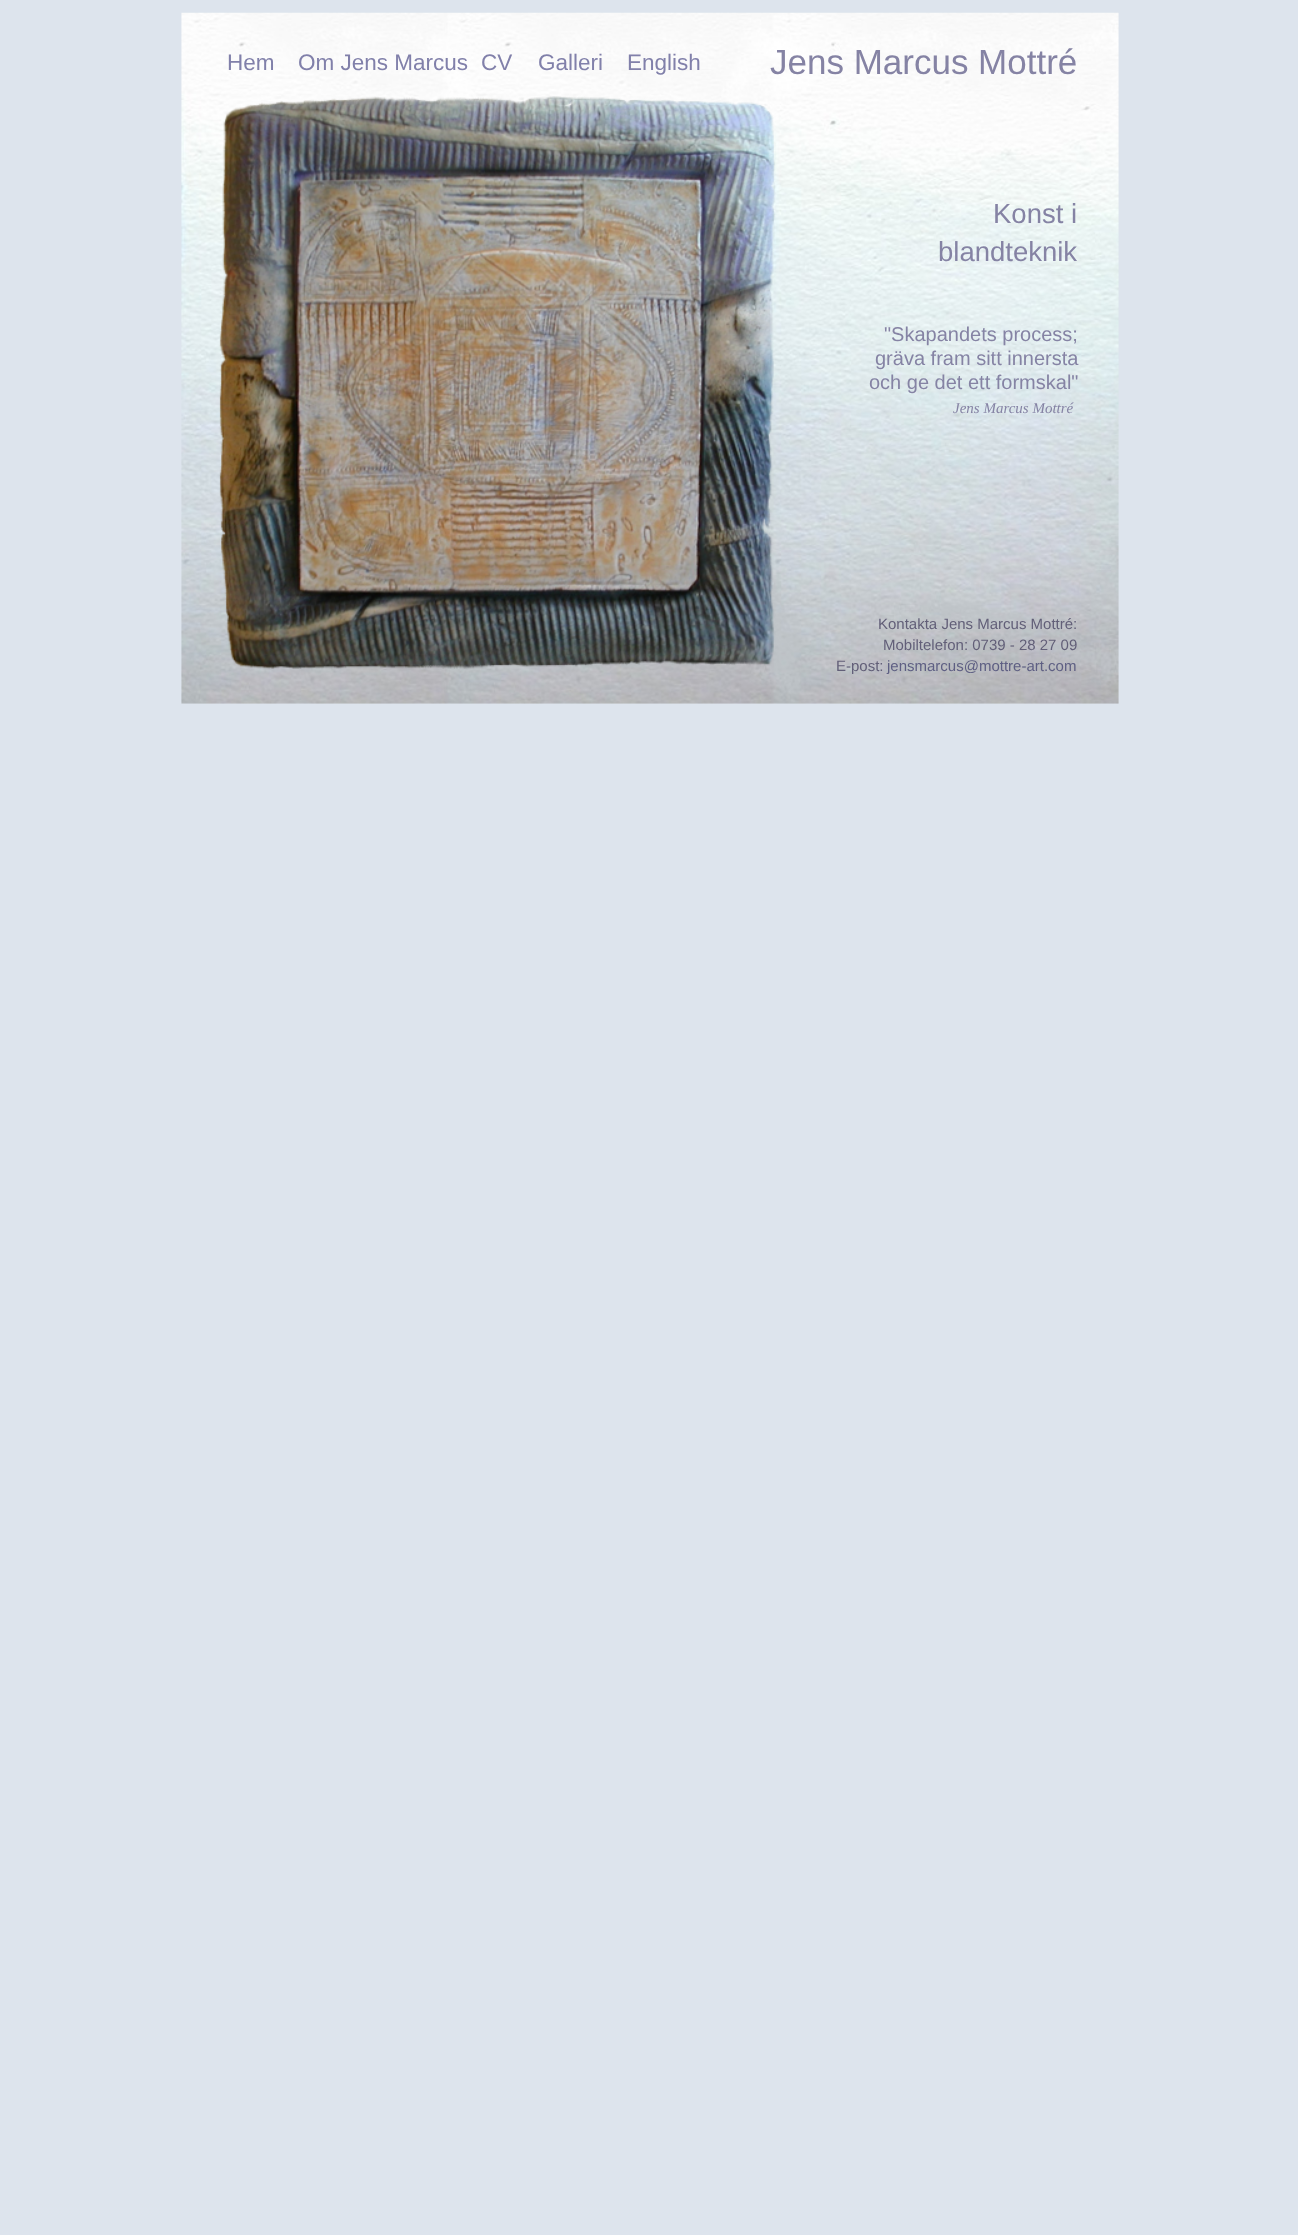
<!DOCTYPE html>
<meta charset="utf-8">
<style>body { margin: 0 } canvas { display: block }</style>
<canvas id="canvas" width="1298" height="2235"></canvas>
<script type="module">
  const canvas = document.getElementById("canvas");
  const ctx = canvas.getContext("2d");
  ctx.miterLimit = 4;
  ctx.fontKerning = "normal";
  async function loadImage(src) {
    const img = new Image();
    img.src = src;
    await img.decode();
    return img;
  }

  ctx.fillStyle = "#dde4ed";
  ctx.fillRect(0, 0, 1298, 2235);
  ctx.drawImage(await loadImage("img1.png"), 181, 12, 938, 692);
  ctx.font = "22.5px Liberation Sans";
  ctx.fillStyle = "#8180aa";
  ctx.fillText("Hem", 227, 70);
  ctx.fillText("Om Jens Marcus", 298, 70);
  ctx.fillText("CV", 481, 70);
  ctx.fillText("Galleri", 538, 70);
  ctx.fillText("English", 627, 70);
  ctx.font = "35px Liberation Sans";
  ctx.fillStyle = "#8583a4";
  ctx.fillText("Jens Marcus Mottré", 770, 74);
  ctx.drawImage(await loadImage("img2.png"), 219, 96, 557, 573);
  ctx.font = "27.5px Liberation Sans";
  ctx.fillText("Konst i", 993, 223);
  ctx.fillText("blandteknik", 938, 261);
  ctx.font = "20px Liberation Sans";
  ctx.fillText("\"Skapandets process;", 884, 341);
  ctx.fillText("gräva fram sitt innersta", 875, 365);
  ctx.fillText("och ge det ett formskal\"", 869, 389);
  ctx.font = "italic 15px Liberation Serif";
  ctx.fillText("Jens Marcus Mottré", 953, 413);
  ctx.font = "15px Liberation Sans";
  ctx.fillStyle = "#625f78";
  ctx.fillText("Kontakta Jens Marcus Mottré:", 878, 629);
  ctx.fillText("Mobiltelefon: 0739 - 28 27 09", 883, 650);
  ctx.fillText("E-post:", 836, 671);
  ctx.fillStyle = "#5e5f83";
  ctx.fillText("jensmarcus@mottre-art.com", 887, 671);
</script>
